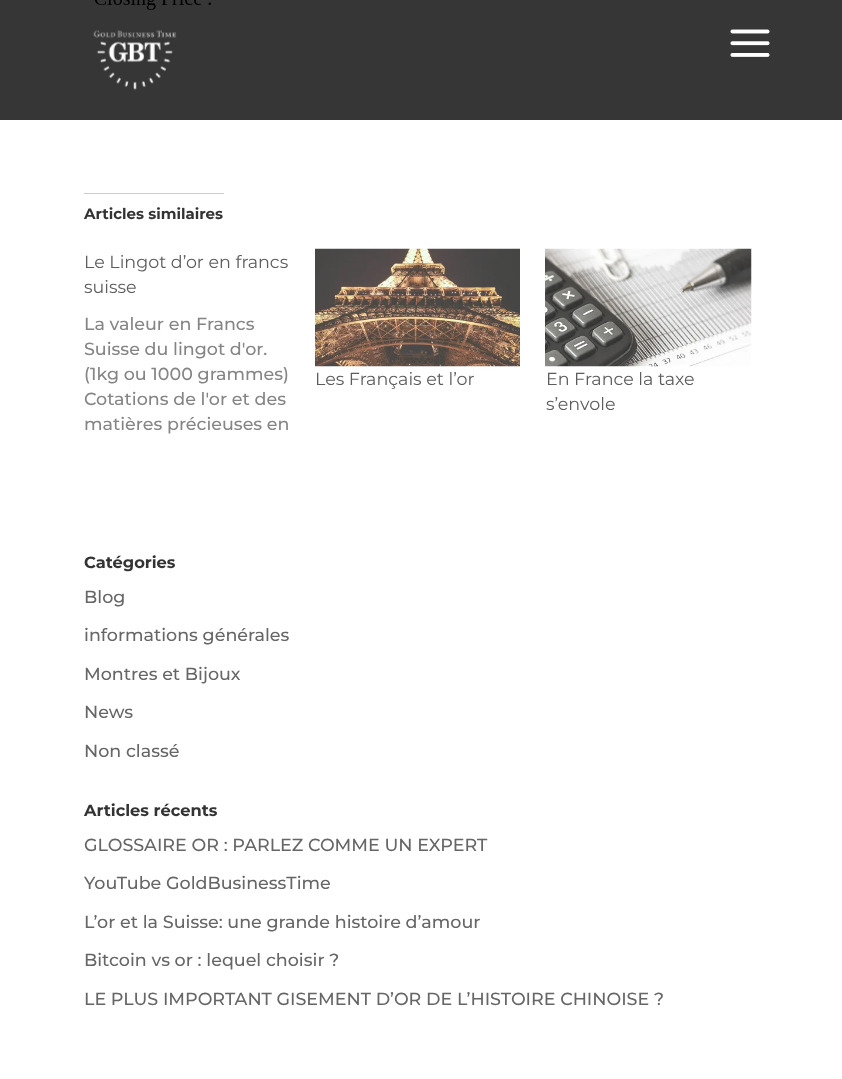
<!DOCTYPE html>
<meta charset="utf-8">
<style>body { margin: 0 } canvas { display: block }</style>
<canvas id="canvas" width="842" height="1079"></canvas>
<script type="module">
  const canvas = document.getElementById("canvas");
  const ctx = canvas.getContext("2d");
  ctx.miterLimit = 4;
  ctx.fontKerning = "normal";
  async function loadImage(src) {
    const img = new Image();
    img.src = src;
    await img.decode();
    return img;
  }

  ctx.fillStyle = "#ffffff";
  ctx.fillRect(0, 0, 842, 1079);
  ctx.fillStyle = "#363636";
  ctx.fillRect(0, 0, 842, 120);
  ctx.drawImage(await loadImage("img1.png"), 93, 30, 84, 60);
  ctx.drawImage(await loadImage("img2.png"), 730, 29, 40, 28);
  ctx.drawImage(await loadImage("img3.png"), 94, 0, 117, 10);
  ctx.fillStyle = "#cccccc";
  ctx.fillRect(84, 193, 140, 1);
  ctx.font = "bold 15px Montserrat";
  ctx.fillStyle = "#333333";
  ctx.fillText("Articles similaires", 84, 219);
  ctx.font = "17.5px Montserrat";
  ctx.fillStyle = "#5c5c5c";
  ctx.fillText("Le Lingot d’or en francs", 84, 268);
  ctx.fillText("suisse", 84, 293);
  ctx.font = "500 17.5px Montserrat";
  ctx.fillStyle = "#858585";
  ctx.fillText("La valeur en Francs", 84, 330);
  ctx.fillText("Suisse du lingot d'or.", 84, 355);
  ctx.fillText("(1kg ou 1000 grammes)", 84, 380);
  ctx.fillText("Cotations de l'or et des", 84, 405);
  ctx.fillText("matières précieuses en", 84, 430);
  ctx.drawImage(await loadImage("img4.png"), 315, 248, 205, 119);
  ctx.font = "17.5px Montserrat";
  ctx.fillStyle = "#5c5c5c";
  ctx.fillText("Les Français et l’or", 315, 385);
  ctx.drawImage(await loadImage("img5.png"), 545, 248, 207, 119);
  ctx.fillText("En France la taxe", 546, 385);
  ctx.fillText("s’envole", 546, 410);
  ctx.font = "bold 16.25px Montserrat";
  ctx.fillStyle = "#333333";
  ctx.fillText("Catégories", 84, 568);
  ctx.font = "500 17.5px Montserrat";
  ctx.fillStyle = "#666666";
  ctx.fillText("Blog", 84, 603);
  ctx.fillText("informations générales", 84, 641);
  ctx.fillText("Montres et Bijoux", 84, 680);
  ctx.fillText("News", 84, 718);
  ctx.fillText("Non classé", 84, 757);
  ctx.font = "bold 16.25px Montserrat";
  ctx.fillStyle = "#333333";
  ctx.fillText("Articles récents", 84, 816);
  ctx.font = "500 17.5px Montserrat";
  ctx.fillStyle = "#666666";
  ctx.fillText("GLOSSAIRE OR : PARLEZ COMME UN EXPERT", 84, 851);
  ctx.fillText("YouTube GoldBusinessTime", 84, 889);
  ctx.fillText("L’or et la Suisse: une grande histoire d’amour", 84, 928);
  ctx.fillText("Bitcoin vs or : lequel choisir ?", 84, 966);
  ctx.fillText("LE PLUS IMPORTANT GISEMENT D’OR DE L’HISTOIRE CHINOISE ?", 84, 1005);
</script>
